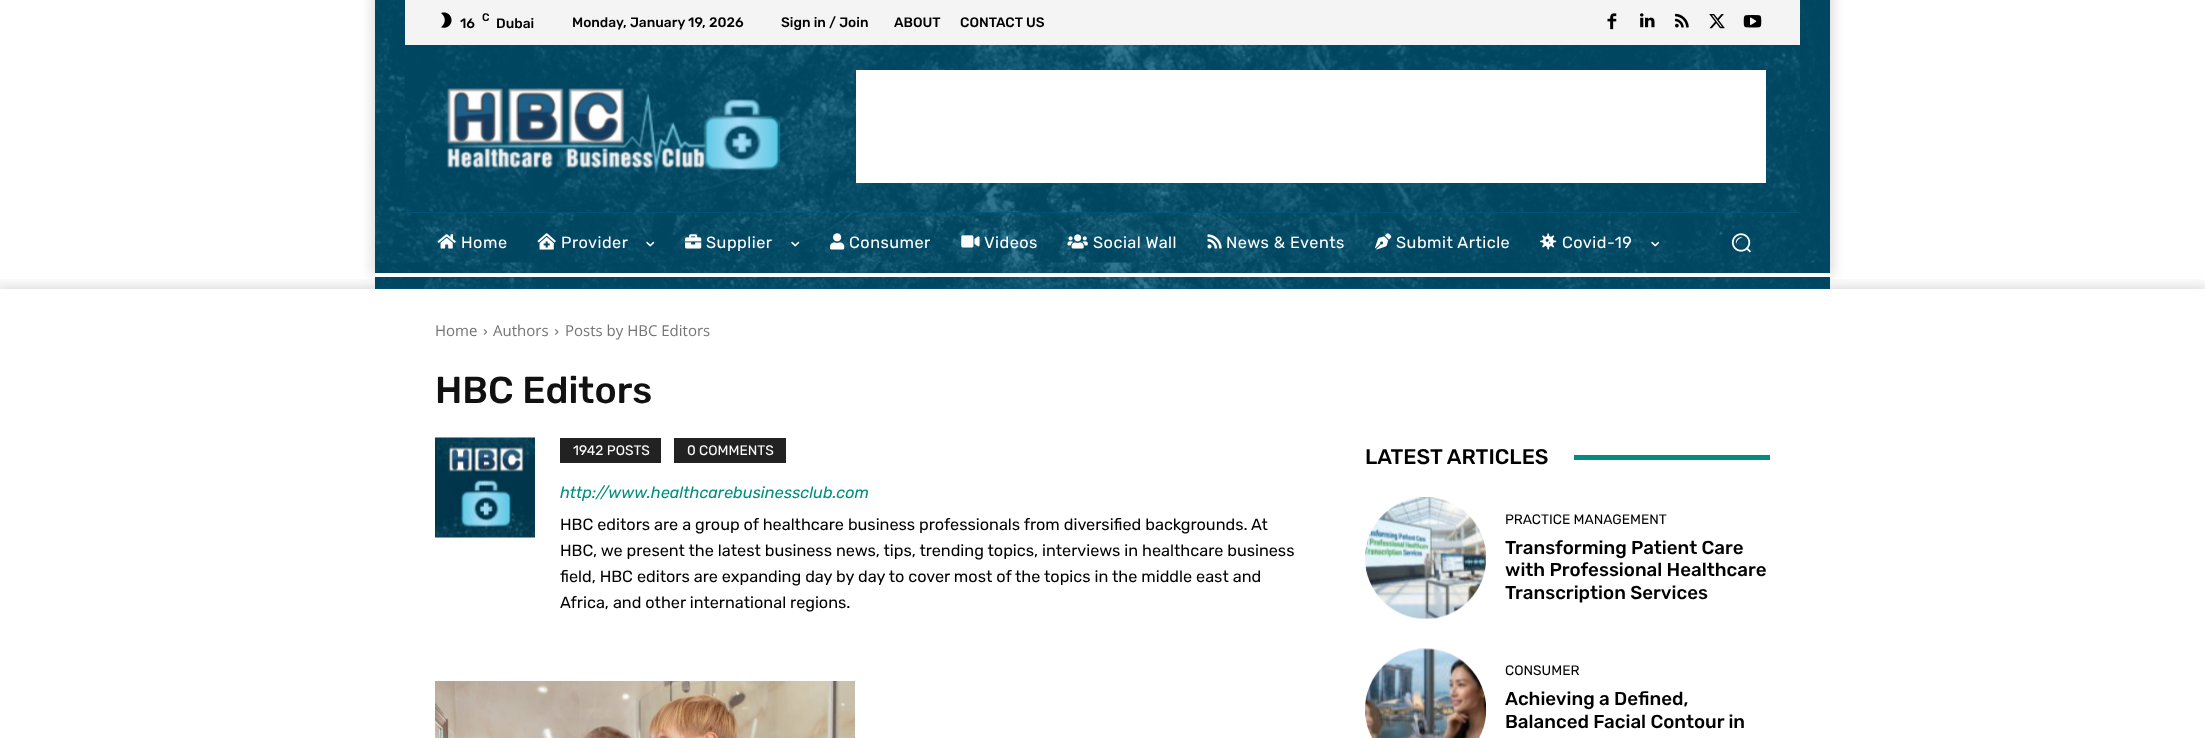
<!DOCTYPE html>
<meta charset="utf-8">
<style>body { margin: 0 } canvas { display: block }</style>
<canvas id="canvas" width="2205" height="738"></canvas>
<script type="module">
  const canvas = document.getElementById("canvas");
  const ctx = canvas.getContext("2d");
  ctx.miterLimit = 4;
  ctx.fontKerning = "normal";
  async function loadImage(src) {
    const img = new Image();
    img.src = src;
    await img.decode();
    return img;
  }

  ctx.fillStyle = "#ffffff";
  ctx.fillRect(0, 0, 2205, 738);
  ctx.fillStyle = "rgba(0, 0, 0, 0.12)";
  ctx.filter = "blur(6px)";
  ctx.beginPath();
  ctx.rect(371, -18, 1463, 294);
  ctx.fill();
  ctx.filter = "none";
  ctx.save();
  ctx.beginPath();
  ctx.rect(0, 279, 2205, 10);
  ctx.clip();
  ctx.filter = "blur(6px)";
  ctx.beginPath();
  ctx.rect(-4, 285, 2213, 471);
  ctx.fill();
  ctx.filter = "none";
  ctx.restore();
  ctx.fillStyle = "#00587a";
  ctx.fillRect(375, 0, 1455, 289);
  ctx.drawImage(await loadImage("img1.png"), 375, 0, 1455, 289);
  ctx.fillStyle = "#f4f4f4";
  ctx.fillRect(405, 0, 1395, 45);
  ctx.drawImage(await loadImage("img2.png"), 441, 12, 11, 16);
  ctx.font = "500 13.75px Rubik";
  ctx.fillStyle = "#000000";
  ctx.fillText("16", 460, 28);
  ctx.font = "500 11px Rubik";
  ctx.fillText("C", 482, 21);
  ctx.font = "500 13.75px Rubik";
  ctx.fillText("Dubai", 496, 28);
  ctx.fillText("Monday, January 19, 2026", 572, 27);
  ctx.fillText("Sign in / Join", 781, 27);
  ctx.fillText("ABOUT", 894, 27);
  ctx.fillText("CONTACT US", 960, 27);
  ctx.drawImage(await loadImage("img3.png"), 1607, 13, 10, 17);
  ctx.drawImage(await loadImage("img4.png"), 1640, 13, 15, 15);
  ctx.drawImage(await loadImage("img5.png"), 1675, 13, 14, 15);
  ctx.drawImage(await loadImage("img6.png"), 1709, 14, 16, 15);
  ctx.drawImage(await loadImage("img7.png"), 1743, 15, 19, 13);
  ctx.fillStyle = "#00587a";
  ctx.fillRect(405, 45, 1395, 168);
  ctx.drawImage(await loadImage("img8.png"), 405, 45, 1395, 168);
  ctx.drawImage(await loadImage("img9.png"), 446, 88, 335, 86);
  ctx.fillStyle = "#ffffff";
  ctx.fillRect(856, 70, 910, 113);
  ctx.drawImage(await loadImage("img10.png"), 437, 234, 19, 15);
  ctx.letterSpacing = "0.5px";
  ctx.font = "16.25px Rubik";
  ctx.fillText("Home", 461, 248);
  ctx.drawImage(await loadImage("img11.png"), 537, 233, 19, 17);
  ctx.fillText("Provider", 561, 248);
  ctx.drawImage(await loadImage("img12.png"), 646, 241, 9, 6);
  ctx.drawImage(await loadImage("img13.png"), 685, 234, 17, 15);
  ctx.fillText("Supplier", 706, 248);
  ctx.drawImage(await loadImage("img14.png"), 791, 241, 9, 6);
  ctx.drawImage(await loadImage("img15.png"), 830, 233, 15, 17);
  ctx.fillText("Consumer", 849, 248);
  ctx.drawImage(await loadImage("img16.png"), 961, 235, 19, 13);
  ctx.fillText("Videos", 984, 248);
  ctx.drawImage(await loadImage("img17.png"), 1067, 234, 21, 15);
  ctx.fillText("Social Wall", 1093, 248);
  ctx.drawImage(await loadImage("img18.png"), 1207, 234, 15, 15);
  ctx.fillText("News & Events", 1226, 248);
  ctx.drawImage(await loadImage("img19.png"), 1375, 233, 17, 17);
  ctx.fillText("Submit Article", 1396, 248);
  ctx.drawImage(await loadImage("img20.png"), 1540, 233, 17, 17);
  ctx.fillText("Covid-19", 1562, 248);
  ctx.drawImage(await loadImage("img21.png"), 1651, 241, 9, 6);
  ctx.drawImage(await loadImage("img22.png"), 1731, 233, 20, 20);
  ctx.fillRect(375, 273, 1455, 4);
  ctx.letterSpacing = "0px";
  ctx.font = "15px Open Sans";
  ctx.fillStyle = "#747474";
  ctx.fillText("Home", 435, 336);
  ctx.drawImage(await loadImage("img23.png"), 483, 329, 5, 6);
  ctx.fillText("Authors", 493, 336);
  ctx.drawImage(await loadImage("img24.png"), 555, 329, 4, 6);
  ctx.fillText("Posts by HBC Editors", 565, 336);
  ctx.font = "500 37.5px Rubik";
  ctx.fillStyle = "#111111";
  ctx.fillText("HBC Editors", 435, 403);
  ctx.drawImage(await loadImage("img25.png"), 435, 437, 100, 101);
  ctx.fillStyle = "#222222";
  ctx.fillRect(560, 438, 101, 25);
  ctx.font = "13.75px Rubik";
  ctx.fillStyle = "#ffffff";
  ctx.fillText("1942 POSTS", 573, 455);
  ctx.fillStyle = "#222222";
  ctx.fillRect(674, 438, 112, 25);
  ctx.fillStyle = "#ffffff";
  ctx.fillText("0 COMMENTS", 687, 455);
  ctx.font = "italic 16.25px Rubik";
  ctx.fillStyle = "#008d7f";
  ctx.fillText("http://www.healthcarebusinessclub.com", 560, 498);
  ctx.font = "16.25px Rubik";
  ctx.fillStyle = "#000000";
  ctx.fillText("HBC editors are a group of healthcare business professionals from diversified backgrounds. At", 560, 530);
  ctx.fillText("HBC, we present the latest business news, tips, trending topics, interviews in healthcare business", 560, 556);
  ctx.fillText("field, HBC editors are expanding day by day to cover most of the topics in the middle east and", 560, 582);
  ctx.fillText("Africa, and other international regions.", 560, 608);
  ctx.drawImage(await loadImage("img26.png"), 435, 681, 420, 57);
  ctx.font = "500 21.25px Rubik";
  ctx.fillText("LATEST ARTICLES", 1365, 464);
  ctx.fillStyle = "#008d7f";
  ctx.fillRect(1574, 455, 196, 5);
  ctx.drawImage(await loadImage("img27.png"), 1365, 497, 122, 122);
  ctx.font = "13.75px Rubik";
  ctx.fillStyle = "#000000";
  ctx.fillText("PRACTICE MANAGEMENT", 1505, 524);
  ctx.font = "500 18.75px Rubik";
  ctx.fillText("Transforming Patient Care", 1505, 554);
  ctx.fillText("with Professional Healthcare", 1505, 576);
  ctx.fillText("Transcription Services", 1505, 599);
  ctx.drawImage(await loadImage("img28.png"), 1365, 648, 122, 90);
  ctx.font = "13.75px Rubik";
  ctx.fillText("CONSUMER", 1505, 675);
  ctx.font = "500 18.75px Rubik";
  ctx.fillText("Achieving a Defined,", 1505, 705);
  ctx.fillText("Balanced Facial Contour in", 1505, 728);
</script>
